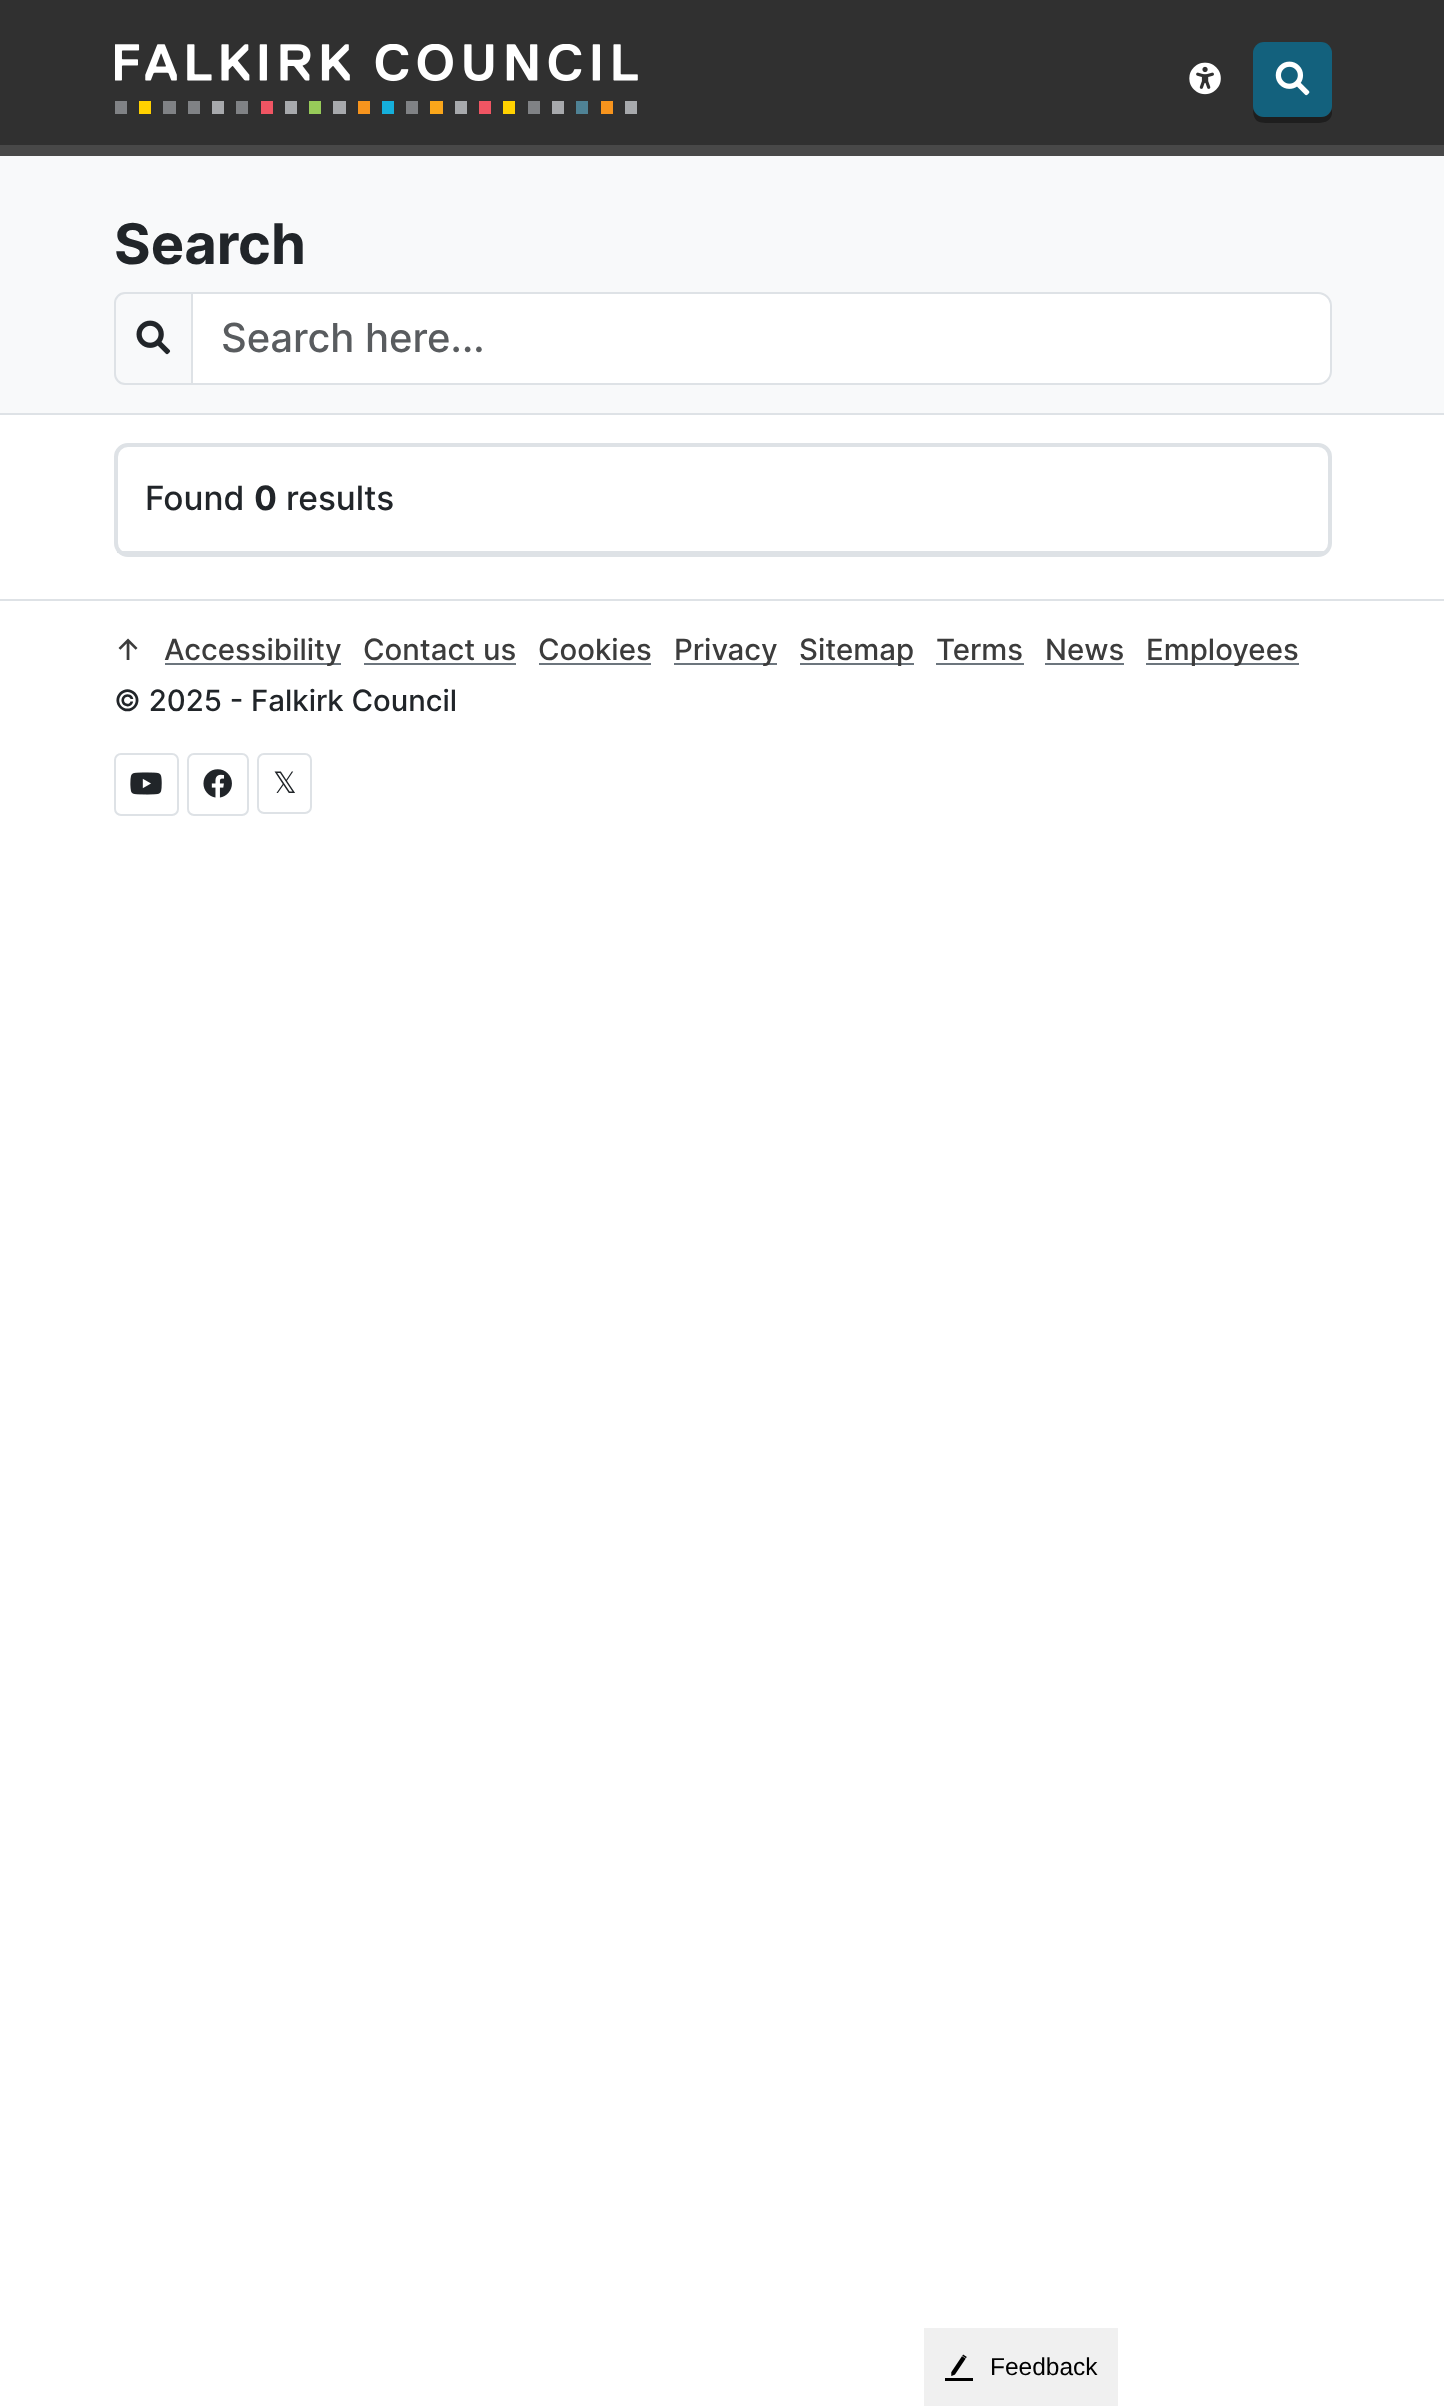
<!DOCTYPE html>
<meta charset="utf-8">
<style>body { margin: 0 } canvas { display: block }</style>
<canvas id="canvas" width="1444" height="2407"></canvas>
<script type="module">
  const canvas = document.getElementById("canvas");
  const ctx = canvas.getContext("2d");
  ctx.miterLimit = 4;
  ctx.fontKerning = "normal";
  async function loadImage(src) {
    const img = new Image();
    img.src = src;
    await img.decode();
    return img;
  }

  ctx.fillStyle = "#ffffff";
  ctx.fillRect(0, 0, 1444, 2407);
  ctx.fillStyle = "#303030";
  ctx.fillRect(0, 0, 1444, 145);
  ctx.fillStyle = "#484848";
  ctx.fillRect(0, 145, 1444, 11);
  ctx.drawImage(await loadImage("img1.png"), 115, 44, 523, 70);
  ctx.drawImage(await loadImage("img2.png"), 1189, 62, 32, 33);
  ctx.fillStyle = "#1e1e1e";
  ctx.beginPath();
  ctx.moveTo(1253, 107);
  ctx.bezierCurveTo(1253, 123, 1258, 123, 1274, 123);
  ctx.lineTo(1312, 123);
  ctx.bezierCurveTo(1319, 123, 1330, 124, 1332, 114);
  ctx.lineTo(1332, 56);
  ctx.lineTo(1332, 107);
  ctx.bezierCurveTo(1332, 113, 1327, 117, 1321, 117);
  ctx.lineTo(1264, 117);
  ctx.bezierCurveTo(1258, 117, 1253, 113, 1253, 107);
  ctx.closePath();
  ctx.fill();
  ctx.fillStyle = "#13617d";
  ctx.beginPath();
  ctx.roundRect(1253, 42, 79, 75, 11);
  ctx.fill();
  ctx.drawImage(await loadImage("img3.png"), 1275, 61, 35, 35);
  ctx.fillStyle = "#f8f9fa";
  ctx.fillRect(0, 156, 1444, 257);
  ctx.fillStyle = "#dee2e6";
  ctx.fillRect(0, 413, 1444, 2);
  ctx.font = "bold 56px Inter";
  ctx.fillStyle = "#212529";
  ctx.fillText("Search", 114, 264);
  ctx.beginPath();
  ctx.roundRect(115, 293, 77, 91, [10, 0, 0, 10]);
  ctx.strokeStyle = "#dee2e6";
  ctx.lineWidth = 2;
  ctx.stroke();
  ctx.drawImage(await loadImage("img4.png"), 136, 320, 35, 35);
  ctx.fillStyle = "#ffffff";
  ctx.beginPath();
  ctx.roundRect(192, 293, 1139, 91, [0, 13, 13, 0]);
  ctx.fill();
  ctx.stroke();
  ctx.font = "500 40px Inter";
  ctx.fillStyle = "#595c5f";
  ctx.fillText("Search here...", 221, 352);
  ctx.beginPath();
  ctx.roundRect(116, 445, 1214, 110, 12);
  ctx.lineWidth = 4;
  ctx.stroke();
  ctx.fillStyle = "#dee2e6";
  ctx.fillRect(117, 551, 1211, 2);
  ctx.font = "500 33.5px Inter";
  ctx.fillStyle = "#212529";
  ctx.fillText("Found", 145, 510);
  ctx.font = "bold 33.5px Inter";
  ctx.fillText("0", 254, 510);
  ctx.font = "500 33.5px Inter";
  ctx.fillText("results", 286, 510);
  ctx.fillStyle = "#dee2e6";
  ctx.fillRect(0, 599, 1444, 2);
  ctx.font = "500 29.4px Inter";
  ctx.fillStyle = "#3c3c3c";
  ctx.fillText("↑", 114, 660);
  ctx.fillStyle = "#6c757d";
  ctx.fillRect(165, 663, 176, 2);
  ctx.fillStyle = "#3c3c3c";
  ctx.fillText("Accessibility", 164, 660);
  ctx.fillText("Contact us", 363, 660);
  ctx.fillStyle = "#6c757d";
  ctx.fillRect(364, 663, 152, 2);
  ctx.fillStyle = "#3c3c3c";
  ctx.fillText("Cookies", 538, 660);
  ctx.fillStyle = "#6c757d";
  ctx.fillRect(539, 663, 112, 2);
  ctx.fillRect(674, 663, 103, 2);
  ctx.fillStyle = "#3c3c3c";
  ctx.fillText("Privacy", 674, 660);
  ctx.fillStyle = "#6c757d";
  ctx.fillRect(800, 663, 114, 2);
  ctx.fillStyle = "#3c3c3c";
  ctx.fillText("Sitemap", 799, 660);
  ctx.fillText("Terms", 936, 660);
  ctx.fillStyle = "#6c757d";
  ctx.fillRect(936, 663, 88, 2);
  ctx.fillStyle = "#3c3c3c";
  ctx.fillText("News", 1045, 660);
  ctx.fillStyle = "#6c757d";
  ctx.fillRect(1045, 663, 79, 2);
  ctx.fillRect(1146, 663, 153, 2);
  ctx.fillStyle = "#3c3c3c";
  ctx.fillText("Employees", 1146, 660);
  ctx.fillStyle = "#212529";
  ctx.fillText("© 2025 - Falkirk Council", 114, 711);
  ctx.beginPath();
  ctx.roundRect(115, 754, 63, 61, 6);
  ctx.lineWidth = 2;
  ctx.stroke();
  ctx.drawImage(await loadImage("img5.png"), 130, 772, 32, 23);
  ctx.beginPath();
  ctx.roundRect(188, 754, 60, 61, 6);
  ctx.stroke();
  ctx.drawImage(await loadImage("img6.png"), 203, 769, 29, 29);
  ctx.beginPath();
  ctx.roundRect(258, 754, 53, 59, 6);
  ctx.stroke();
  ctx.font = "29.4px DejaVu Sans";
  ctx.fillText("𝕏", 273, 793);
  ctx.fillStyle = "#f0f0f0";
  ctx.fillRect(924, 2328, 194, 78);
  ctx.drawImage(await loadImage("img7.png"), 945, 2354, 28, 27);
  ctx.font = "24.5px Liberation Sans";
  ctx.fillStyle = "#000000";
  ctx.fillText("Feedback", 990, 2375);
</script>
